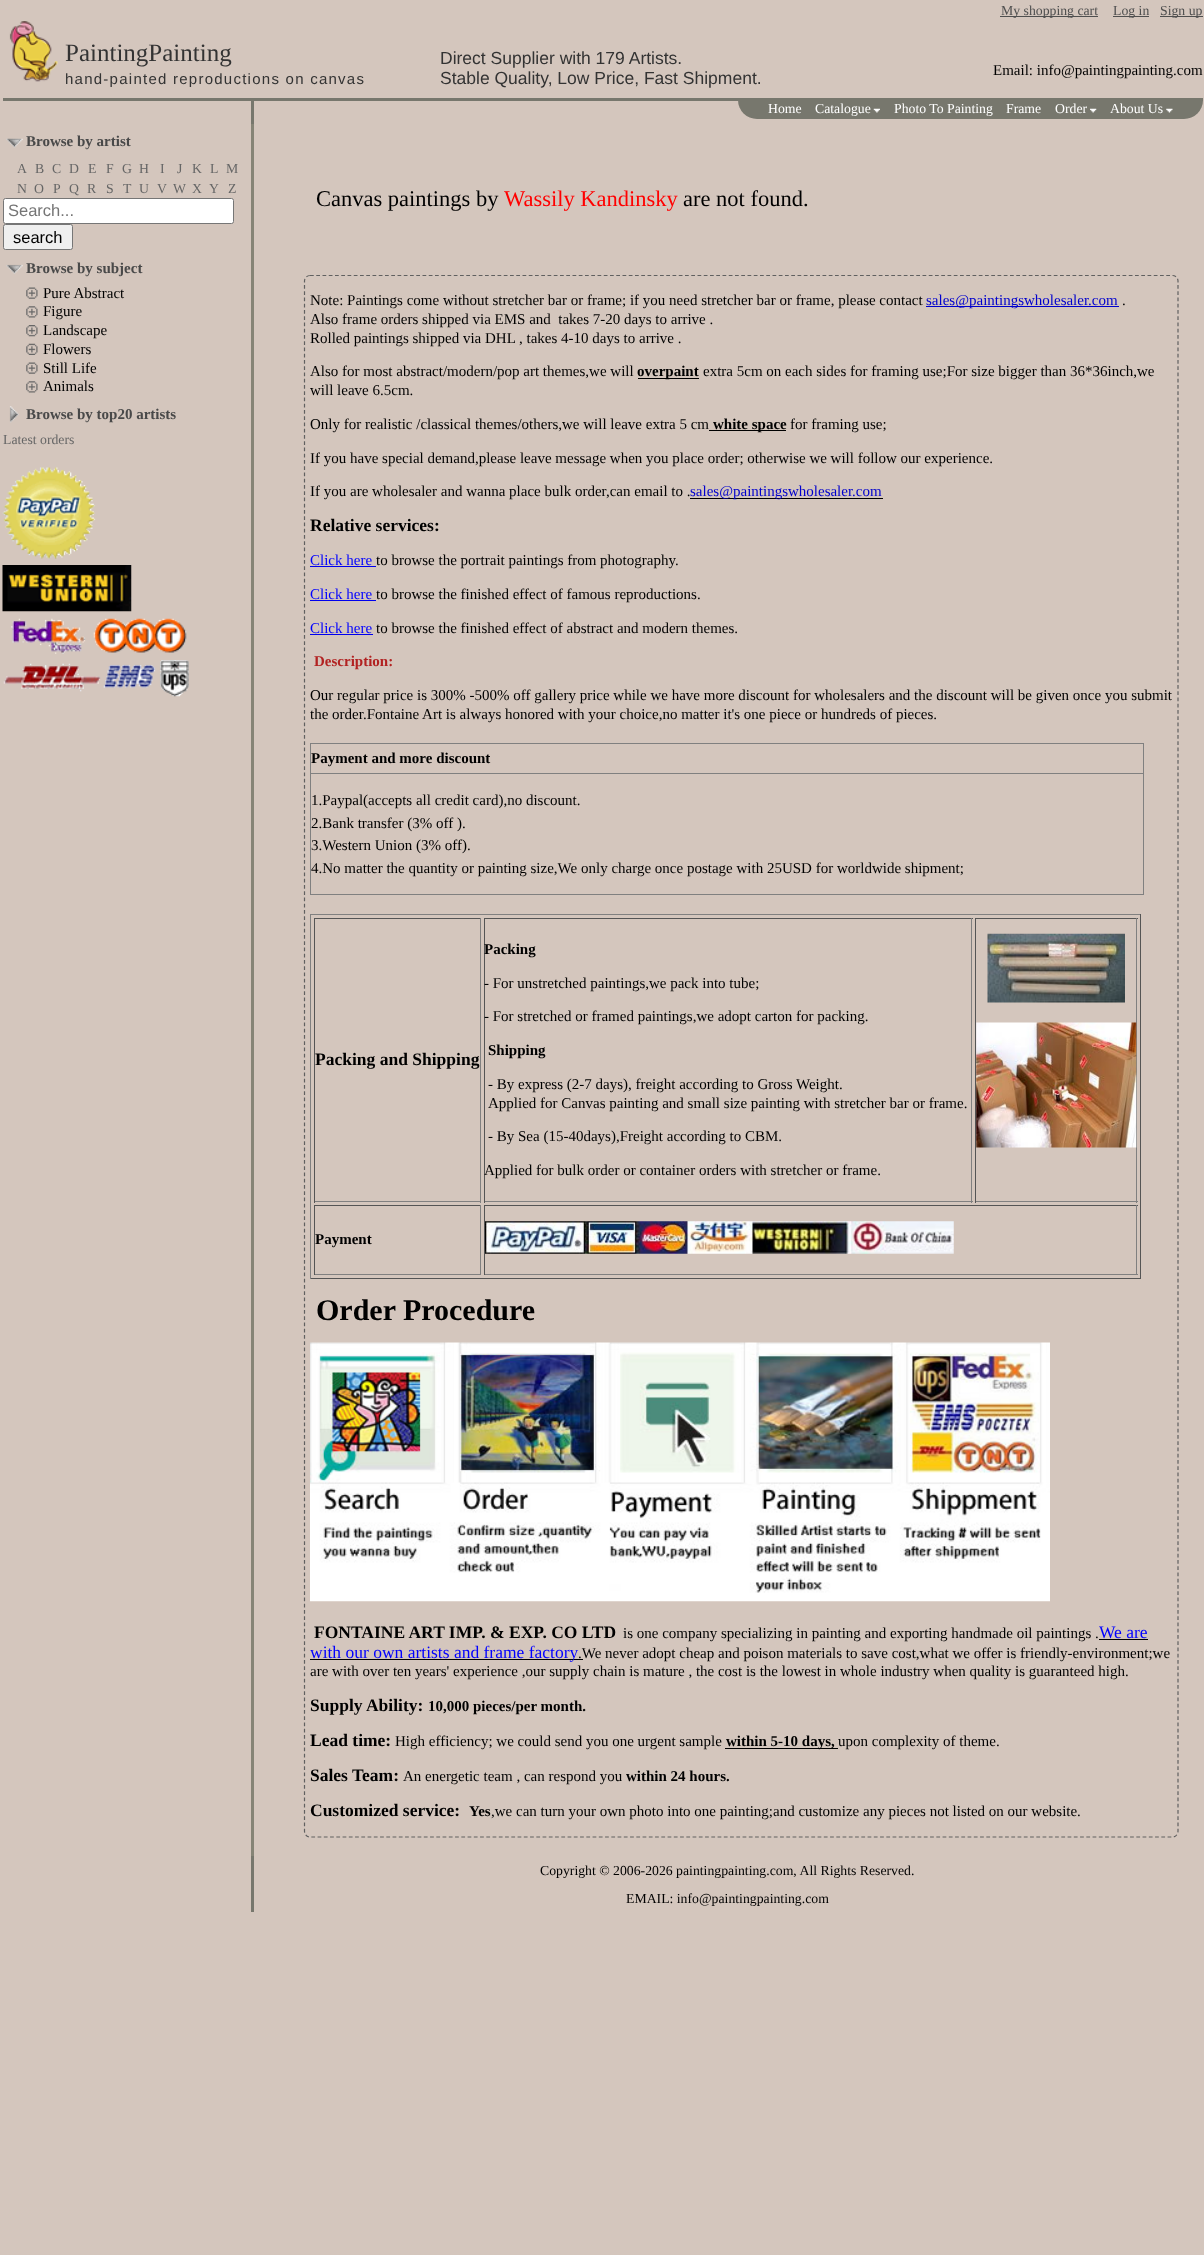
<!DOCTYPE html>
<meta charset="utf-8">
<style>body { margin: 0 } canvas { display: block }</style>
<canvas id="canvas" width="1204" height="2255"></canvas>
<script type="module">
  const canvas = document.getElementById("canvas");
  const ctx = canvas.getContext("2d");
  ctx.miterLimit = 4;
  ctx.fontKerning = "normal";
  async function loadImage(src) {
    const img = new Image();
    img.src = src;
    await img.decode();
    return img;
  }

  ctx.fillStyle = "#d4c6bd";
  ctx.fillRect(0, 0, 1204, 2255);
  ctx.fillStyle = "#4f4f4f";
  ctx.fillRect(1000, 16, 98, 1);
  ctx.font = "13.75px Liberation Serif";
  ctx.fillText("My shopping cart", 1001, 15);
  ctx.fillRect(1113, 16, 36, 1);
  ctx.fillText("Log in", 1113, 15);
  ctx.fillRect(1160, 16, 43, 1);
  ctx.fillText("Sign up", 1160, 15);
  ctx.drawImage(await loadImage("img1.png"), 9, 21, 49, 61);
  ctx.font = "25px Liberation Serif";
  ctx.fillStyle = "#333333";
  ctx.fillText("PaintingPainting", 65, 61);
  ctx.letterSpacing = "1.25px";
  ctx.font = "15px Liberation Sans";
  ctx.fillText("hand-painted reproductions on canvas", 65, 84);
  ctx.letterSpacing = "0px";
  ctx.font = "17.5px Liberation Sans";
  ctx.fillText("Direct Supplier with 179 Artists.", 440, 64);
  ctx.fillText("Stable Quality, Low Price, Fast Shipment.", 440, 84);
  ctx.font = "15px Liberation Serif";
  ctx.fillStyle = "#000000";
  ctx.fillText("Email: info@paintingpainting.com", 993, 75);
  ctx.fillStyle = "#77776d";
  ctx.fillRect(251, 100, 3, 24);
  ctx.beginPath();
  ctx.roundRect(738, 100, 465, 19, [0, 0, 19, 19]);
  ctx.fill();
  ctx.fillRect(3, 98, 1200, 3);
  ctx.font = "13.75px Liberation Serif";
  ctx.fillStyle = "#ffffff";
  ctx.fillText("Home", 768, 113);
  ctx.fillText("Catalogue", 815, 113);
  ctx.drawImage(await loadImage("img2.png"), 873, 108, 7, 5);
  ctx.fillText("Photo To Painting", 894, 113);
  ctx.fillText("Frame", 1006, 113);
  ctx.fillText("Order", 1055, 113);
  ctx.drawImage(await loadImage("img3.png"), 1090, 108, 7, 5);
  ctx.fillText("About Us", 1110, 113);
  ctx.drawImage(await loadImage("img4.png"), 1166, 108, 7, 5);
  ctx.drawImage(await loadImage("img5.png"), 6, 138, 17, 10);
  ctx.font = "bold 15px Liberation Serif";
  ctx.fillStyle = "#494949";
  ctx.fillText("Browse by artist", 26, 146);
  ctx.font = "13.75px Liberation Serif";
  ctx.fillStyle = "#666666";
  ctx.fillText("A", 17, 173);
  ctx.fillText("B", 35, 173);
  ctx.fillText("C", 52, 173);
  ctx.fillText("D", 69, 173);
  ctx.fillText("E", 88, 173);
  ctx.fillText("F", 106, 173);
  ctx.fillText("G", 122, 173);
  ctx.fillText("H", 139, 173);
  ctx.fillText("I", 160, 173);
  ctx.fillText("J", 177, 173);
  ctx.fillText("K", 192, 173);
  ctx.fillText("L", 210, 173);
  ctx.fillText("M", 226, 173);
  ctx.fillText("N", 17, 193);
  ctx.fillText("O", 34, 193);
  ctx.fillText("P", 53, 193);
  ctx.fillText("Q", 69, 193);
  ctx.fillText("R", 87, 193);
  ctx.fillText("S", 106, 193);
  ctx.fillText("T", 123, 193);
  ctx.fillText("U", 139, 193);
  ctx.fillText("V", 157, 193);
  ctx.fillText("W", 173, 193);
  ctx.fillText("X", 192, 193);
  ctx.fillText("Y", 209, 193);
  ctx.fillText("Z", 228, 193);
  ctx.fillStyle = "#ffffff";
  ctx.beginPath();
  ctx.roundRect(3.5, 198.5, 230, 25, 2);
  ctx.fill();
  ctx.strokeStyle = "#767676";
  ctx.stroke();
  ctx.font = "16.5px Liberation Sans";
  ctx.fillStyle = "#757575";
  ctx.fillText("Search...", 8, 216);
  ctx.fillStyle = "#efefef";
  ctx.beginPath();
  ctx.roundRect(3.5, 224.5, 69, 25, 2);
  ctx.fill();
  ctx.stroke();
  ctx.fillStyle = "#000000";
  ctx.fillText("search", 13, 243);
  ctx.drawImage(await loadImage("img6.png"), 6, 264, 17, 10);
  ctx.font = "bold 15px Liberation Serif";
  ctx.fillStyle = "#494949";
  ctx.fillText("Browse by subject", 26, 273);
  ctx.drawImage(await loadImage("img7.png"), 26, 287, 12, 12);
  ctx.font = "15px Liberation Serif";
  ctx.fillStyle = "#000000";
  ctx.fillText("Pure Abstract", 43, 298);
  ctx.drawImage(await loadImage("img8.png"), 26, 306, 12, 12);
  ctx.fillText("Figure", 43, 316);
  ctx.drawImage(await loadImage("img9.png"), 26, 325, 12, 12);
  ctx.fillText("Landscape", 43, 335);
  ctx.drawImage(await loadImage("img10.png"), 26, 343, 12, 12);
  ctx.fillText("Flowers", 43, 354);
  ctx.drawImage(await loadImage("img11.png"), 26, 362, 12, 12);
  ctx.fillText("Still Life", 43, 373);
  ctx.drawImage(await loadImage("img8.png"), 26, 381, 12, 12);
  ctx.fillText("Animals", 43, 391);
  ctx.drawImage(await loadImage("img12.png"), 9, 406, 10, 17);
  ctx.font = "bold 15px Liberation Serif";
  ctx.fillStyle = "#494949";
  ctx.fillText("Browse by top20 artists", 26, 419);
  ctx.font = "13.75px Liberation Serif";
  ctx.fillStyle = "#666666";
  ctx.fillText("Latest orders", 3, 444);
  ctx.drawImage(await loadImage("img13.png"), 2, 467, 94, 92);
  ctx.drawImage(await loadImage("img14.png"), 2, 565, 130, 47);
  ctx.drawImage(await loadImage("img15.png"), 11, 618, 176, 36);
  ctx.drawImage(await loadImage("img16.png"), 3, 660, 186, 37);
  ctx.fillStyle = "#868476";
  ctx.fillRect(251, 124, 3, 1732);
  ctx.font = "22.5px Liberation Serif";
  ctx.fillStyle = "#000000";
  ctx.fillText("Canvas paintings by", 316, 206);
  ctx.fillStyle = "#ff0000";
  ctx.fillText("Wassily Kandinsky", 504, 206);
  ctx.fillStyle = "#000000";
  ctx.fillText("are not found.", 683, 206);
  ctx.beginPath();
  ctx.moveTo(310, 275.5);
  ctx.lineTo(1172.5, 275.5);
  ctx.bezierCurveTo(1175.5, 275.5, 1178, 278, 1178, 281);
  ctx.lineTo(1178, 1831);
  ctx.bezierCurveTo(1178, 1834.5, 1175.5, 1837, 1172.5, 1837);
  ctx.lineTo(310, 1837);
  ctx.bezierCurveTo(307, 1837, 304.5, 1834.5, 304.5, 1831);
  ctx.lineTo(304.5, 281);
  ctx.bezierCurveTo(304.5, 278, 307, 275.5, 310, 275.5);
  ctx.closePath();
  ctx.strokeStyle = "#606060";
  ctx.lineWidth = 1.2;
  ctx.setLineDash([3.75, 2.5]);
  ctx.stroke();
  ctx.font = "15px Liberation Serif";
  ctx.fillText("Note: Paintings come without stretcher bar or frame; if you need stretcher bar or frame, please contact", 310, 305);
  ctx.fillStyle = "#0000cd";
  ctx.fillRect(926, 306, 193, 1);
  ctx.fillText("sales@paintingswholesaler.com", 926, 305);
  ctx.fillStyle = "#000000";
  ctx.fillText(".", 1122, 305);
  ctx.fillText("Also frame orders shipped via EMS and  takes 7-20 days to arrive .", 310, 324);
  ctx.fillText("Rolled paintings shipped via DHL , takes 4-10 days to arrive .", 310, 343);
  ctx.fillText("Also for most abstract/modern/pop art themes,we will", 310, 376);
  ctx.fillRect(638, 378, 61, 1);
  ctx.font = "bold 15px Liberation Serif";
  ctx.fillText("overpaint", 637, 376);
  ctx.font = "15px Liberation Serif";
  ctx.fillText("extra 5cm on each sides for framing use;For size bigger than 36*36inch,we", 703, 376);
  ctx.fillText("will leave 6.5cm.", 310, 395);
  ctx.fillText("Only for realistic /classical themes/others,we will leave extra 5 cm", 310, 429);
  ctx.fillRect(709, 430, 77, 1);
  ctx.font = "bold 15px Liberation Serif";
  ctx.fillText("white space", 713, 429);
  ctx.font = "15px Liberation Serif";
  ctx.fillText("for framing use;", 790, 429);
  ctx.fillText("If you have special demand,please leave message when you place order; otherwise we will follow our experience.", 310, 463);
  ctx.fillText("If you are wholesaler and wanna place bulk order,can email to .", 310, 496);
  ctx.fillRect(690, 498, 193, 1);
  ctx.fillStyle = "#0000cd";
  ctx.fillText("sales@paintingswholesaler.com", 690, 496);
  ctx.font = "bold 17.5px Liberation Serif";
  ctx.fillStyle = "#000000";
  ctx.fillText("Relative services:", 310, 531);
  ctx.font = "15px Liberation Serif";
  ctx.fillStyle = "#0000ff";
  ctx.fillText("Click here", 310, 565);
  ctx.fillStyle = "#0000ee";
  ctx.fillRect(310, 566, 66, 1);
  ctx.fillStyle = "#000000";
  ctx.fillText("to browse the portrait paintings from photography.", 376, 565);
  ctx.fillStyle = "#0000ff";
  ctx.fillText("Click here", 310, 599);
  ctx.fillStyle = "#0000ee";
  ctx.fillRect(310, 600, 66, 1);
  ctx.fillStyle = "#000000";
  ctx.fillText("to browse the finished effect of famous reproductions.", 376, 599);
  ctx.fillStyle = "#0000ff";
  ctx.fillText("Click here", 310, 633);
  ctx.fillStyle = "#0000ee";
  ctx.fillRect(310, 634, 63, 1);
  ctx.fillStyle = "#000000";
  ctx.fillText("to browse the finished effect of abstract and modern themes.", 376, 633);
  ctx.font = "bold 15px Liberation Serif";
  ctx.fillStyle = "#b22222";
  ctx.fillText("Description:", 314, 666);
  ctx.font = "15px Liberation Serif";
  ctx.fillStyle = "#000000";
  ctx.fillText("Our regular price is 300% -500% off gallery price while we have more discount for wholesalers and the discount will be given once you submit", 310, 700);
  ctx.fillText("the order.Fontaine Art is always honored with your choice,no matter it's one piece or hundreds of pieces.", 310, 719);
  ctx.fillStyle = "#808080";
  ctx.fillRect(310, 743, 834, 1);
  ctx.fillRect(1143, 743, 1, 152);
  ctx.fillRect(310, 894, 834, 1);
  ctx.fillRect(310, 743, 1, 152);
  ctx.font = "bold 15px Liberation Serif";
  ctx.fillStyle = "#000000";
  ctx.fillText("Payment and more discount", 311, 763);
  ctx.fillStyle = "#808080";
  ctx.fillRect(310, 773, 834, 1);
  ctx.font = "15px Liberation Serif";
  ctx.fillStyle = "#000000";
  ctx.fillText("1.Paypal(accepts all credit card),no discount.", 311, 805);
  ctx.fillText("2.Bank transfer (3% off ).", 311, 828);
  ctx.fillText("3.Western Union (3% off).", 311, 850);
  ctx.fillText("4.No matter the quantity or painting size,We only charge once postage with 25USD for worldwide shipment;", 311, 873);
  ctx.fillStyle = "#808080";
  ctx.fillRect(310, 914, 831, 1);
  ctx.fillStyle = "#555555";
  ctx.fillRect(1140, 914, 1, 365);
  ctx.fillRect(310, 1278, 831, 1);
  ctx.fillStyle = "#808080";
  ctx.fillRect(310, 914, 1, 365);
  ctx.fillStyle = "#555555";
  ctx.fillRect(314, 918, 167, 1);
  ctx.fillStyle = "#808080";
  ctx.fillRect(480, 918, 1, 285);
  ctx.fillRect(314, 1201, 167, 1);
  ctx.fillStyle = "#555555";
  ctx.fillRect(314, 918, 1, 285);
  ctx.font = "bold 17.5px Liberation Serif";
  ctx.fillStyle = "#000000";
  ctx.fillText("Packing and Shipping", 315, 1065);
  ctx.fillStyle = "#555555";
  ctx.fillRect(484, 918, 489, 1);
  ctx.fillStyle = "#808080";
  ctx.fillRect(971, 918, 1, 285);
  ctx.fillRect(484, 1201, 489, 1);
  ctx.fillStyle = "#555555";
  ctx.fillRect(484, 918, 1, 285);
  ctx.font = "bold 15px Liberation Serif";
  ctx.fillStyle = "#000000";
  ctx.fillText("Packing", 484, 954);
  ctx.font = "15px Liberation Serif";
  ctx.fillText("- For unstretched paintings,we pack into tube;", 484, 988);
  ctx.fillText("- For stretched or framed paintings,we adopt carton for packing.", 484, 1021);
  ctx.font = "bold 15px Liberation Serif";
  ctx.fillText("Shipping", 488, 1055);
  ctx.font = "15px Liberation Serif";
  ctx.fillText("- By express (2-7 days), freight according to Gross Weight.", 488, 1089);
  ctx.fillText("Applied for Canvas painting and small size painting with stretcher bar or frame.", 488, 1108);
  ctx.fillText("- By Sea (15-40days),Freight according to CBM.", 488, 1141);
  ctx.fillText("Applied for bulk order or container orders with stretcher or frame.", 484, 1175);
  ctx.fillStyle = "#555555";
  ctx.fillRect(975, 918, 163, 1);
  ctx.fillStyle = "#808080";
  ctx.fillRect(1136, 918, 1, 285);
  ctx.fillRect(975, 1201, 163, 1);
  ctx.fillStyle = "#555555";
  ctx.fillRect(975, 918, 1, 285);
  ctx.drawImage(await loadImage("img17.png"), 987, 933, 138, 70);
  ctx.drawImage(await loadImage("img18.png"), 976, 1022, 161, 126);
  ctx.fillRect(314, 1205, 167, 1);
  ctx.fillStyle = "#808080";
  ctx.fillRect(480, 1205, 1, 70);
  ctx.fillRect(314, 1274, 167, 1);
  ctx.fillStyle = "#555555";
  ctx.fillRect(314, 1205, 1, 70);
  ctx.font = "bold 15px Liberation Serif";
  ctx.fillStyle = "#000000";
  ctx.fillText("Payment", 315, 1244);
  ctx.fillStyle = "#555555";
  ctx.fillRect(484, 1205, 654, 1);
  ctx.fillStyle = "#808080";
  ctx.fillRect(1136, 1205, 1, 70);
  ctx.fillRect(484, 1274, 654, 1);
  ctx.fillStyle = "#555555";
  ctx.fillRect(484, 1205, 1, 70);
  ctx.drawImage(await loadImage("img19.png"), 485, 1221, 469, 33);
  ctx.font = "bold 30px Liberation Serif";
  ctx.fillStyle = "#000000";
  ctx.fillText("Order Procedure", 316, 1320);
  ctx.drawImage(await loadImage("img20.png"), 310, 1342, 740, 260);
  ctx.font = "bold 17.5px Liberation Serif";
  ctx.fillText("FONTAINE ART IMP. & EXP. CO LTD", 314, 1638);
  ctx.font = "15px Liberation Serif";
  ctx.fillText("is one company specializing in painting and exporting handmade oil paintings .", 623, 1638);
  ctx.font = "17.5px Liberation Serif";
  ctx.fillStyle = "#0000ff";
  ctx.fillText("We are", 1099, 1638);
  ctx.fillStyle = "#000000";
  ctx.fillRect(1099, 1639, 49, 1);
  ctx.fillRect(310, 1659, 273, 1);
  ctx.fillStyle = "#0000ff";
  ctx.fillText("with our own artists and frame factory", 310, 1658);
  ctx.font = "15px Liberation Serif";
  ctx.fillStyle = "#000000";
  ctx.fillText(".We never adopt cheap and poison materials to save cost,what we offer is friendly-environment;we", 578, 1658);
  ctx.fillText("are with over ten years' experience ,our supply chain is mature , the cost is the lowest in whole industry when quality is guaranteed high.", 310, 1676);
  ctx.font = "bold 17.5px Liberation Serif";
  ctx.fillText("Supply Ability:", 310, 1711);
  ctx.font = "bold 15px Liberation Serif";
  ctx.fillText("10,000 pieces/per month.", 428, 1711);
  ctx.font = "bold 17.5px Liberation Serif";
  ctx.fillText("Lead time:", 310, 1746);
  ctx.font = "15px Liberation Serif";
  ctx.fillText("High efficiency; we could send you one urgent sample", 395, 1746);
  ctx.fillRect(725, 1748, 113, 1);
  ctx.font = "bold 15px Liberation Serif";
  ctx.fillText("within 5-10 days,", 726, 1746);
  ctx.font = "15px Liberation Serif";
  ctx.fillText("upon complexity of theme.", 838, 1746);
  ctx.font = "bold 17.5px Liberation Serif";
  ctx.fillText("Sales Team:", 310, 1781);
  ctx.font = "15px Liberation Serif";
  ctx.fillText("An energetic team , can respond you", 403, 1781);
  ctx.font = "bold 15px Liberation Serif";
  ctx.fillText("within 24 hours.", 626, 1781);
  ctx.font = "bold 17.5px Liberation Serif";
  ctx.fillText("Customized service:", 310, 1816);
  ctx.font = "bold 15px Liberation Serif";
  ctx.fillText("Yes", 469, 1816);
  ctx.font = "15px Liberation Serif";
  ctx.fillText(",we can turn your own photo into one painting;and customize any pieces not listed on our website.", 491, 1816);
  ctx.fillStyle = "#77776d";
  ctx.fillRect(251, 1856, 3, 56);
  ctx.font = "13.75px Liberation Serif";
  ctx.fillStyle = "#000000";
  ctx.fillText("Copyright © 2006-2026 paintingpainting.com, All Rights Reserved.", 540, 1875);
  ctx.fillText("EMAIL: info@paintingpainting.com", 626, 1903);
</script>
